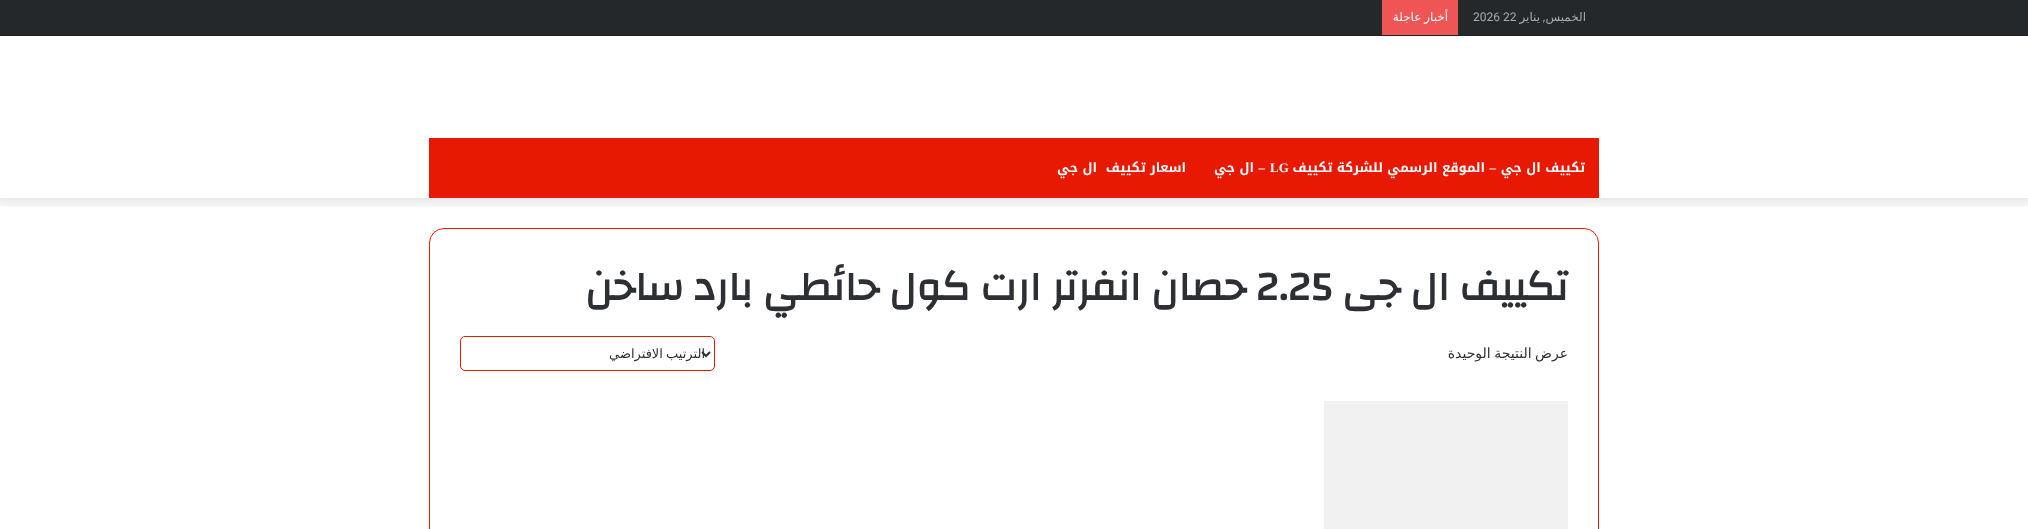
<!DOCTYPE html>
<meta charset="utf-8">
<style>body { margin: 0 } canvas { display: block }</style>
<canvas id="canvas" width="2028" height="529"></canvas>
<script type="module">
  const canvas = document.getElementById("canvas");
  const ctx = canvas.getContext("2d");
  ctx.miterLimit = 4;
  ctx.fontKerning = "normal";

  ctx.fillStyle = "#ffffff";
  ctx.fillRect(0, 0, 2028, 529);
  ctx.save();
  ctx.beginPath();
  ctx.rect(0, 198, 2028, 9);
  ctx.clip();
  ctx.fillStyle = "rgba(0, 0, 0, 0.1)";
  ctx.filter = "blur(5px)";
  ctx.beginPath();
  ctx.rect(-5, -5, 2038, 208);
  ctx.fill();
  ctx.filter = "none";
  ctx.restore();
  ctx.fillStyle = "#25282b";
  ctx.fillRect(0, 0, 2028, 35);
  ctx.fillStyle = "#212427";
  ctx.fillRect(0, 35, 2028, 1);
  ctx.direction = "rtl";
  ctx.font = "12px DejaVu Sans";
  ctx.fillStyle = "#aaaaaa";
  ctx.fillText("الخميس", 1586, 21);
  ctx.font = "12px Roboto";
  ctx.fillText(",", 1545, 21);
  ctx.font = "12px DejaVu Sans";
  ctx.fillText("يناير", 1540, 21);
  ctx.direction = "ltr";
  ctx.font = "12px Roboto";
  ctx.fillText("2026 22", 1473, 21);
  ctx.fillStyle = "#f05555";
  ctx.fillRect(1382, 0, 76, 35);
  ctx.wordSpacing = "-1px";
  ctx.direction = "rtl";
  ctx.font = "12px DejaVu Sans";
  ctx.fillStyle = "#ffffff";
  ctx.fillText("أخبار عاجلة", 1448, 21);
  ctx.fillStyle = "#e81902";
  ctx.fillRect(429, 138, 1170, 60);
  ctx.wordSpacing = "0px";
  ctx.font = "bold 13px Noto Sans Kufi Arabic";
  ctx.fillStyle = "#ffffff";
  ctx.fillText("تكييف ال جي", 1585, 172);
  ctx.font = "bold 13px Liberation Serif";
  ctx.fillText("–", 1496, 172);
  ctx.font = "bold 13px Noto Sans Kufi Arabic";
  ctx.fillText("الموقع الرسمي للشركة تكييف", 1485, 172);
  ctx.direction = "ltr";
  ctx.font = "bold 13px Liberation Serif";
  ctx.fillText("LG", 1270, 172);
  ctx.direction = "rtl";
  ctx.fillText("–", 1265, 172);
  ctx.font = "bold 13px Noto Sans Kufi Arabic";
  ctx.fillText("ال جي", 1254, 172);
  ctx.fillText("اسعار تكييف  ال جي", 1186, 172);
  ctx.beginPath();
  ctx.roundRect(429.5, 228.5, 1169, 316, 14.5);
  ctx.strokeStyle = "#e81902";
  ctx.stroke();
  ctx.font = "bold 41px Changa";
  ctx.fillStyle = "#2c2f34";
  ctx.fillText("تكييف ال جى", 1568, 300);
  ctx.direction = "ltr";
  ctx.fillText("2.25", 1256, 300);
  ctx.direction = "rtl";
  ctx.fillText("حصان انفرتر ارت كول حائطي بارد ساخن", 1246, 300);
  ctx.wordSpacing = "-1px";
  ctx.font = "14px DejaVu Sans";
  ctx.fillText("عرض النتيجة الوحيدة", 1568, 358);
  ctx.beginPath();
  ctx.roundRect(460.5, 336.5, 254, 34, 4.5);
  ctx.stroke();
  ctx.beginPath();
  ctx.moveTo(702, 352);
  ctx.lineTo(706, 356);
  ctx.lineTo(710, 352);
  ctx.strokeStyle = "#2c2f34";
  ctx.lineWidth = 2;
  ctx.stroke();
  ctx.font = "13px DejaVu Sans";
  ctx.fillText("الترتيب الافتراضي", 705, 358);
  ctx.fillStyle = "#f1f1f1";
  ctx.fillRect(1324, 401, 244, 128);
</script>
